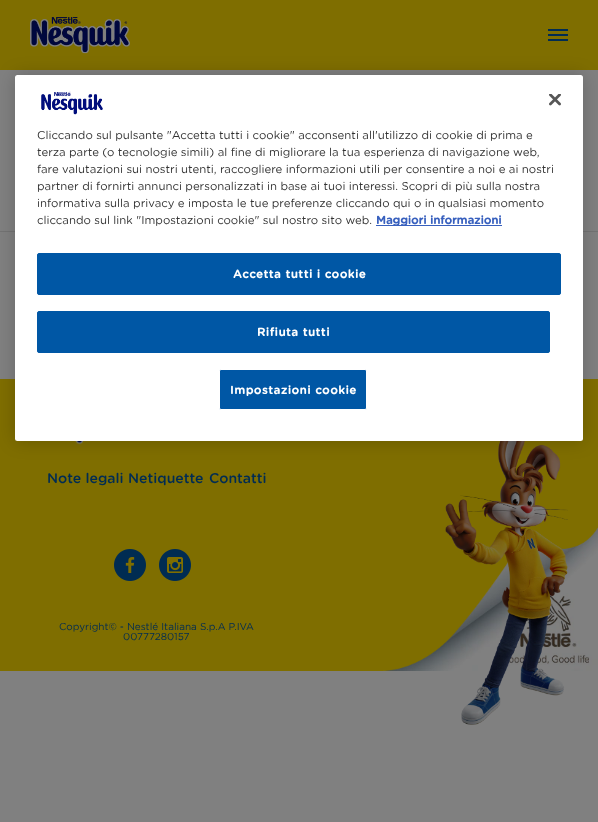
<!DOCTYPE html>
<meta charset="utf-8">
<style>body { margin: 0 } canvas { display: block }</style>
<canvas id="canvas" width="598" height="822"></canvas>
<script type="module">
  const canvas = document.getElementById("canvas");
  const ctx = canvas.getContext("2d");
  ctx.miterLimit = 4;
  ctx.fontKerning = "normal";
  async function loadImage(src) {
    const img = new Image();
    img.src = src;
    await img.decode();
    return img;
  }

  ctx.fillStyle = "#808080";
  ctx.fillRect(0, 0, 598, 822);
  ctx.fillStyle = "#7f6e00";
  ctx.fillRect(0, 0, 598, 70);
  ctx.drawImage(await loadImage("img3.png"), 30, 17, 100, 37);
  ctx.fillStyle = "#737373";
  ctx.fillRect(0, 231, 598, 1);
  ctx.fillStyle = "#7f6e00";
  ctx.fillRect(0, 379, 598, 292);
  ctx.drawImage(await loadImage("img5.png"), 75, 441, 9, 4);
  ctx.drawImage(await loadImage("img4.png"), 383, 527, 215, 144);
  ctx.drawImage(await loadImage("img6.png"), 445, 441, 123, 284);
  ctx.fillStyle = "rgba(0, 0, 0, 0.2)";
  ctx.filter = "blur(9px)";
  ctx.beginPath();
  ctx.roundRect(15, 75, 568, 366, 2.5);
  ctx.fill();
  ctx.filter = "none";
  ctx.fillStyle = "#ffffff";
  ctx.beginPath();
  ctx.roundRect(15, 75, 568, 366, 2.5);
  ctx.fill();
  ctx.drawImage(await loadImage("img1.png"), 549, 94, 12, 12);
  ctx.drawImage(await loadImage("img2.png"), 41, 91, 62, 24);
  ctx.font = "11.4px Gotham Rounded";
  ctx.fillStyle = "#333333";
  ctx.fillText("Cliccando sul pulsante \"Accetta tutti i cookie\" acconsenti all'utilizzo di cookie di prima e", 37, 139);
  ctx.fillText("terza parte (o tecnologie simili) al fine di migliorare la tua esperienza di navigazione web,", 37, 156);
  ctx.fillText("fare valutazioni sui nostri utenti, raccogliere informazioni utili per consentire a noi e ai nostri", 37, 173);
  ctx.fillText("partner di fornirti annunci personalizzati in base ai tuoi interessi. Scopri di più sulla nostra", 37, 190);
  ctx.fillText("informativa sulla privacy e imposta le tue preferenze cliccando qui o in qualsiasi momento", 37, 207);
  ctx.fillText("cliccando sul link \"Impostazioni cookie\" sul nostro sito web.", 37, 224);
  ctx.fillStyle = "#3860be";
  ctx.fillRect(376, 225, 126, 1);
  ctx.font = "bold 11.4px Gotham Rounded";
  ctx.fillText("Maggiori informazioni", 376, 224);
  ctx.fillStyle = "#0057a5";
  ctx.beginPath();
  ctx.roundRect(37.5, 253.5, 523, 41, 1.5);
  ctx.fill();
  ctx.strokeStyle = "#0057a5";
  ctx.stroke();
  ctx.letterSpacing = "0.6px";
  ctx.fillStyle = "#ffffff";
  ctx.fillText("Accetta tutti i cookie", 233, 278);
  ctx.fillStyle = "#0057a5";
  ctx.beginPath();
  ctx.roundRect(37.5, 311.5, 512, 41, 1.5);
  ctx.fill();
  ctx.stroke();
  ctx.fillStyle = "#ffffff";
  ctx.fillText("Rifiuta tutti", 257, 336);
  ctx.fillStyle = "#0057a5";
  ctx.beginPath();
  ctx.roundRect(219.5, 369.5, 147, 40, 1.5);
  ctx.fill();
  ctx.strokeStyle = "#ffffff";
  ctx.stroke();
  ctx.fillStyle = "#ffffff";
  ctx.fillText("Impostazioni cookie", 230, 394);
  ctx.fillStyle = "#002c53";
  ctx.fillRect(548, 29, 20, 2);
  ctx.fillRect(548, 34, 20, 2);
  ctx.fillRect(548, 39, 20, 2);
  ctx.letterSpacing = "0px";
  ctx.font = "500 14px Gotham Rounded";
  ctx.fillText("Note legali", 47, 483);
  ctx.fillText("Netiquette", 128, 483);
  ctx.fillText("Contatti", 209, 483);
  ctx.drawImage(await loadImage("img7.png"), 114, 549, 32, 32);
  ctx.drawImage(await loadImage("img8.png"), 159, 549, 32, 32);
  ctx.font = "10px Gotham Rounded";
  ctx.fillText("Copyright© - Nestlé Italiana S.p.A P.IVA", 59, 630);
  ctx.fillText("00777280157", 123, 640);
</script>
